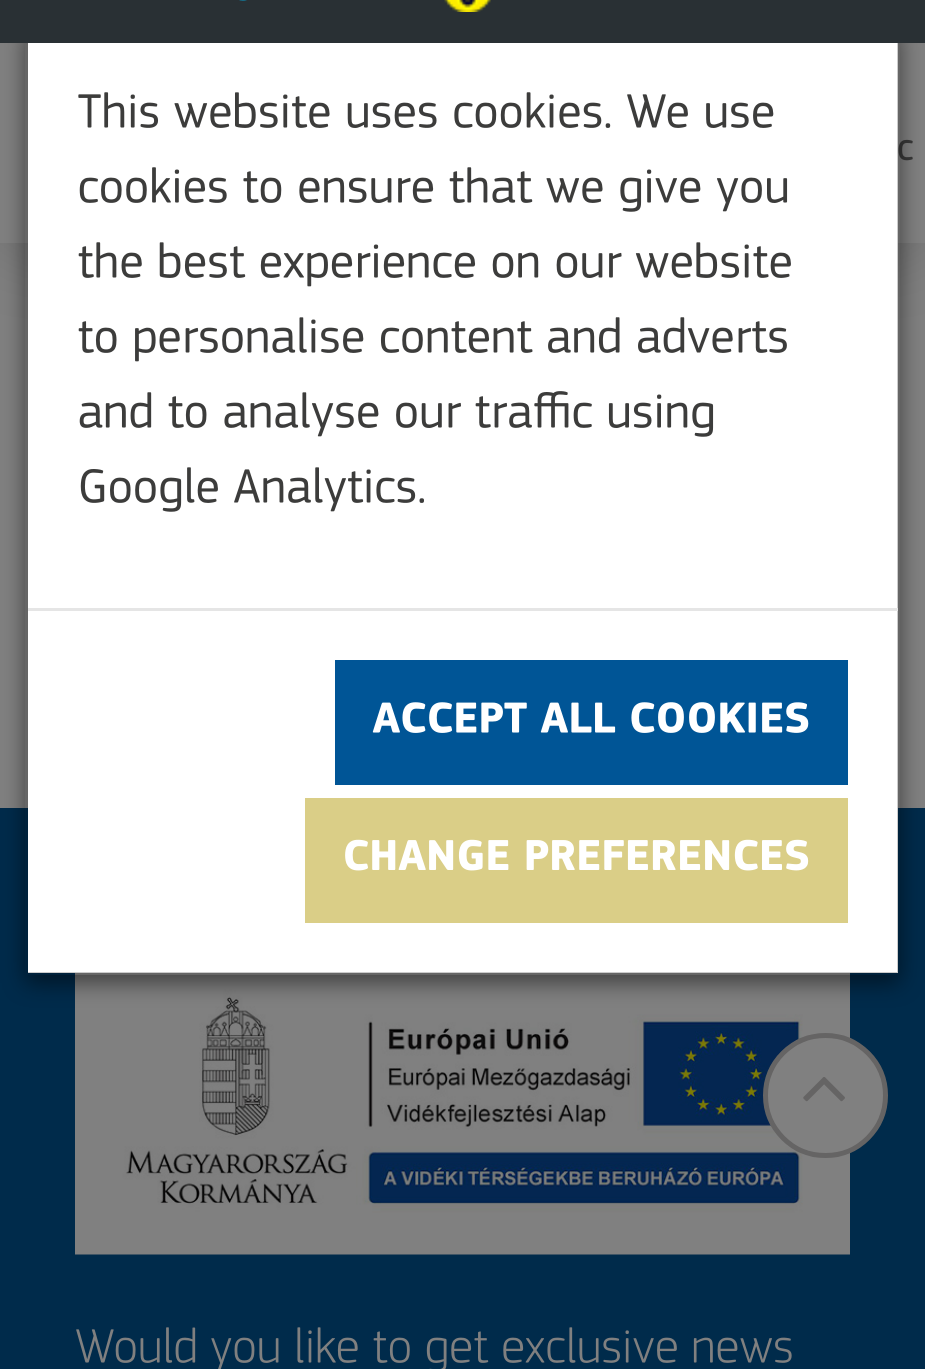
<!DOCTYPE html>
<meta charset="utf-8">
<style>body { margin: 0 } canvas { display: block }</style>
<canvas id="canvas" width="925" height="1369"></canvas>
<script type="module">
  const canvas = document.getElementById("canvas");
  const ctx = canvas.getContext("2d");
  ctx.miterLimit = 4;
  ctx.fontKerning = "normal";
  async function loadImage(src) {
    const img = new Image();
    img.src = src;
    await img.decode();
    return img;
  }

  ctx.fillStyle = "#808080";
  ctx.fillRect(0, 0, 925, 1369);
  ctx.fillStyle = "rgba(0, 0, 0, 0.2)";
  ctx.filter = "blur(37.5px)";
  ctx.beginPath();
  ctx.rect(0, 43, 925, 200);
  ctx.fill();
  ctx.filter = "none";
  ctx.fillStyle = "#808080";
  ctx.fillRect(0, 43, 925, 200);
  ctx.drawImage(await loadImage("img1.png"), 898, 139, 15, 22);
  ctx.fillStyle = "#002b4b";
  ctx.fillRect(0, 808, 925, 561);
  ctx.drawImage(await loadImage("img13.png"), 75, 973, 775, 282);
  ctx.save();
  ctx.beginPath();
  ctx.moveTo(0, 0);
  ctx.lineTo(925, 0);
  ctx.lineTo(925, 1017);
  ctx.lineTo(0, 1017);
  ctx.closePath();
  ctx.moveTo(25, 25);
  ctx.lineTo(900, 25);
  ctx.lineTo(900, 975);
  ctx.lineTo(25, 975);
  ctx.closePath();
  ctx.clip("evenodd");
  ctx.fillStyle = "rgba(0, 0, 0, 0.5)";
  ctx.filter = "blur(11px)";
  ctx.beginPath();
  ctx.rect(25, 33, 875, 950);
  ctx.fill();
  ctx.filter = "none";
  ctx.restore();
  ctx.fillStyle = "#ffffff";
  ctx.fillRect(28, 43, 870, 930);
  ctx.strokeStyle = "rgba(0, 0, 0, 0.2)";
  ctx.lineWidth = 3;
  ctx.strokeRect(26.5, 26.5, 872, 947);
  ctx.fillStyle = "#293034";
  ctx.fillRect(0, 0, 925, 43);
  ctx.drawImage(await loadImage("img2.png"), 239, 0, 8, 1);
  ctx.drawImage(await loadImage("img3.png"), 444, 0, 47, 12);
  ctx.drawImage(await loadImage("img4.png"), 78, 92, 696, 36);
  ctx.drawImage(await loadImage("img5.png"), 79, 167, 709, 45);
  ctx.drawImage(await loadImage("img6.png"), 78, 242, 713, 45);
  ctx.drawImage(await loadImage("img7.png"), 78, 317, 709, 45);
  ctx.drawImage(await loadImage("img8.png"), 79, 391, 635, 46);
  ctx.drawImage(await loadImage("img9.png"), 80, 467, 344, 45);
  ctx.fillStyle = "#e5e5e5";
  ctx.fillRect(28, 608, 870, 3);
  ctx.fillStyle = "#005596";
  ctx.fillRect(335, 660, 513, 125);
  ctx.drawImage(await loadImage("img10.png"), 372, 702, 437, 31);
  ctx.fillStyle = "#dace87";
  ctx.fillRect(305, 798, 543, 125);
  ctx.drawImage(await loadImage("img11.png"), 345, 839, 464, 32);
  ctx.fillStyle = "#808080";
  ctx.beginPath();
  ctx.arc(825.5, 1095.5, 60, 0, Math.PI * 2);
  ctx.fill();
  ctx.strokeStyle = "#656464";
  ctx.lineWidth = 5;
  ctx.stroke();
  ctx.drawImage(await loadImage("img12.png"), 803, 1077, 42, 25);
  ctx.drawImage(await loadImage("img14.png"), 76, 1327, 716, 42);
</script>
